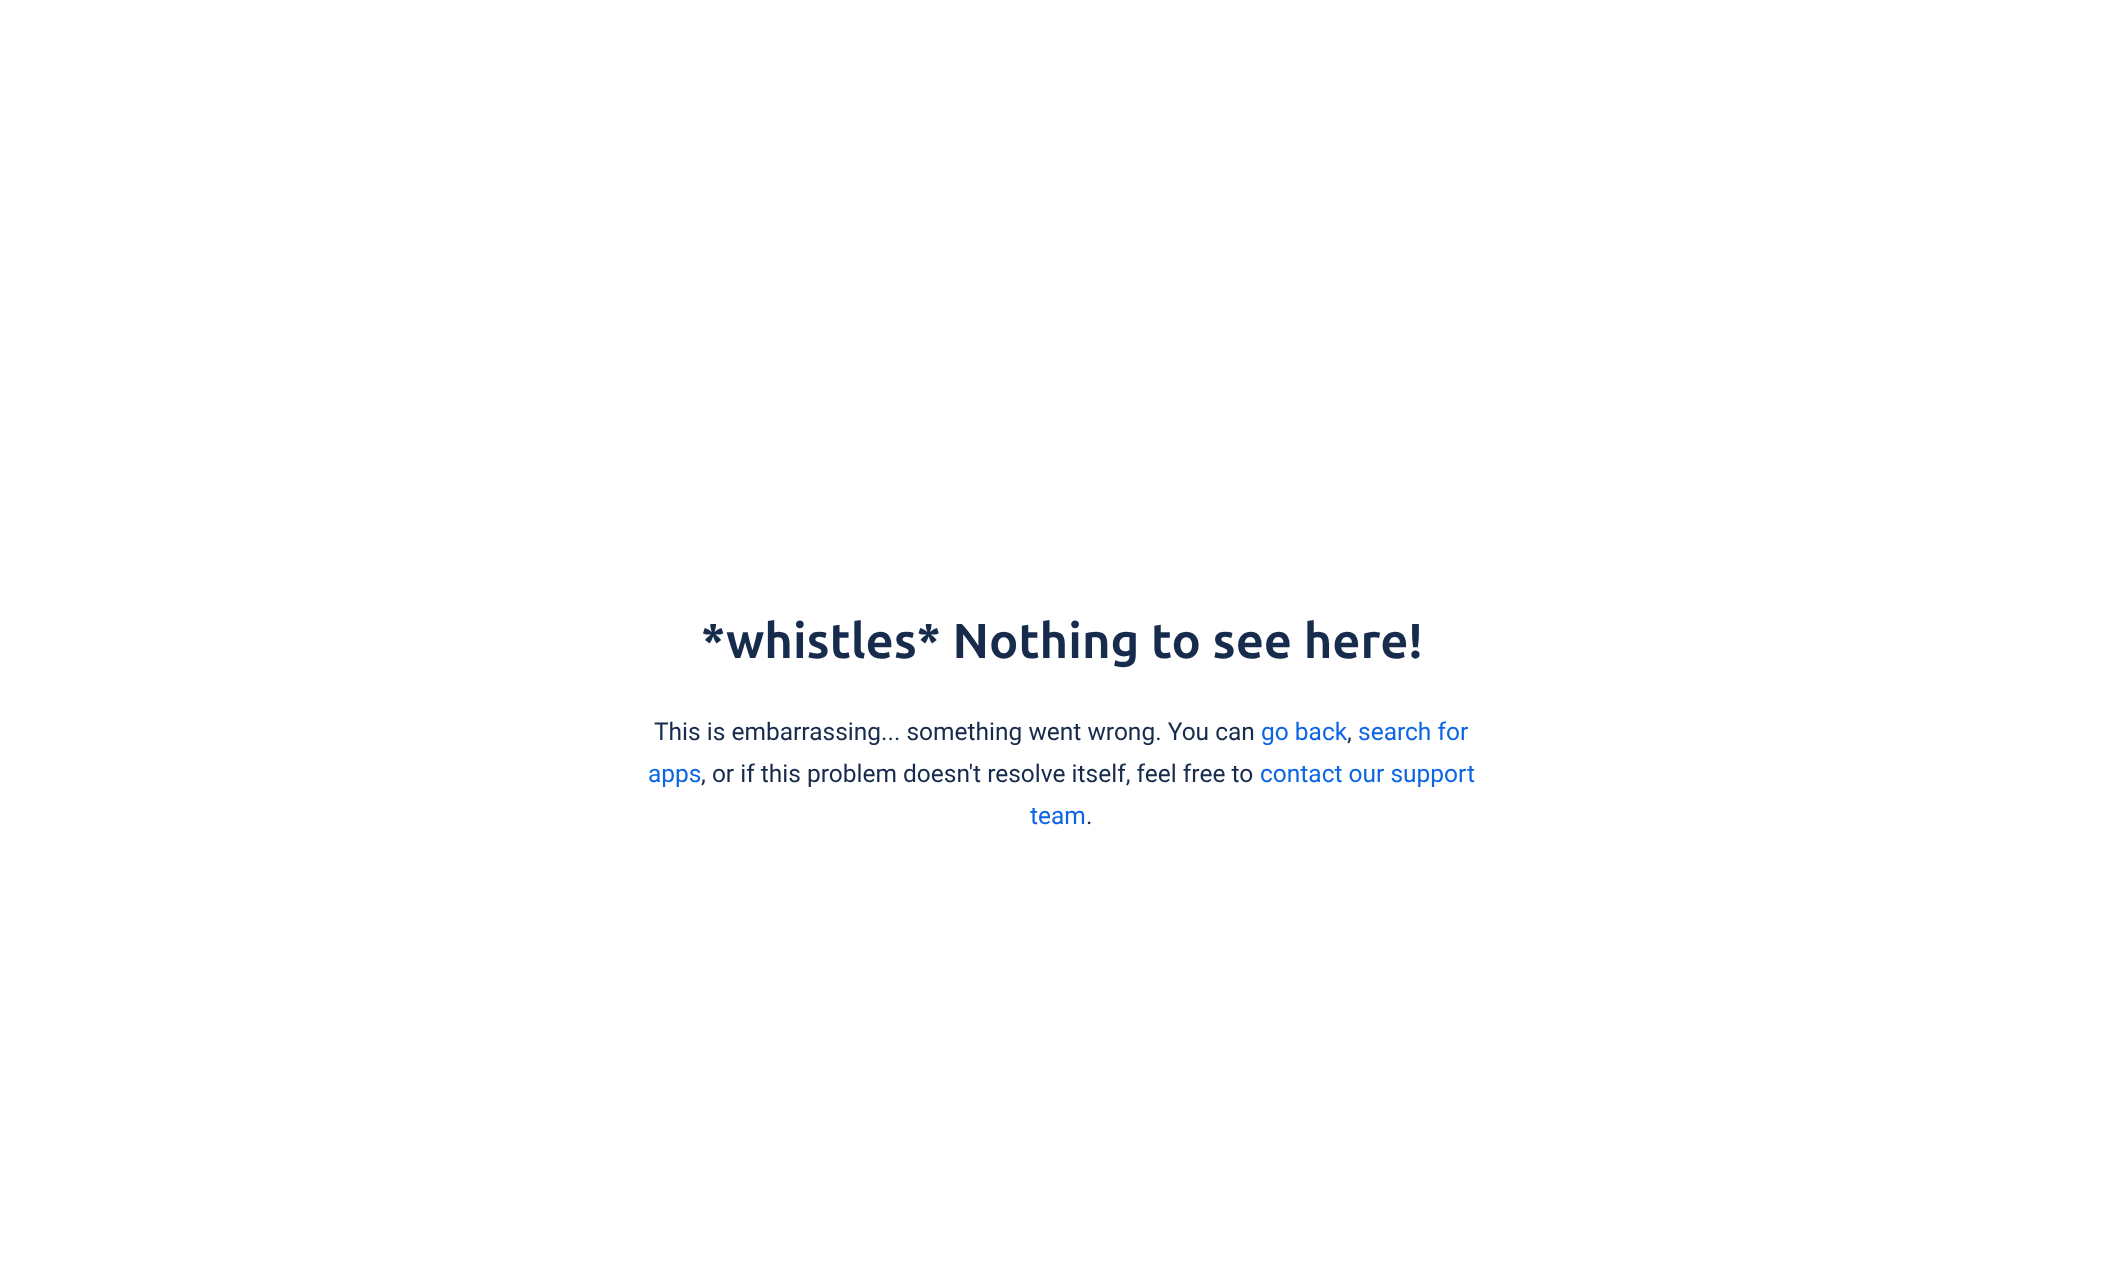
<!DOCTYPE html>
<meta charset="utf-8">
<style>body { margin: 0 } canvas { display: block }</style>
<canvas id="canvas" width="2122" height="1275"></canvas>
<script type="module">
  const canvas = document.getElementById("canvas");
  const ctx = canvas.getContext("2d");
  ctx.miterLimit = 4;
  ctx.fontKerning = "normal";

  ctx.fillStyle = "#ffffff";
  ctx.fillRect(0, 0, 2122, 1275);
  ctx.font = "bold 49px Ubuntu";
  ctx.fillStyle = "#172b4d";
  ctx.fillText("*whistles* Nothing to see here!", 701, 658);
  ctx.font = "24.5px Roboto";
  ctx.fillText("This is embarrassing... something went wrong. You can", 654, 740);
  ctx.fillStyle = "#0c66e4";
  ctx.fillText("go back", 1261, 740);
  ctx.fillStyle = "#172b4d";
  ctx.fillText(",", 1347, 740);
  ctx.fillStyle = "#0c66e4";
  ctx.fillText("search for", 1358, 740);
  ctx.fillText("apps", 648, 782);
  ctx.fillStyle = "#172b4d";
  ctx.fillText(", or if this problem doesn't resolve itself, feel free to", 701, 782);
  ctx.fillStyle = "#0c66e4";
  ctx.fillText("contact our support", 1260, 782);
  ctx.fillText("team", 1030, 824);
  ctx.fillStyle = "#172b4d";
  ctx.fillText(".", 1086, 824);
</script>
